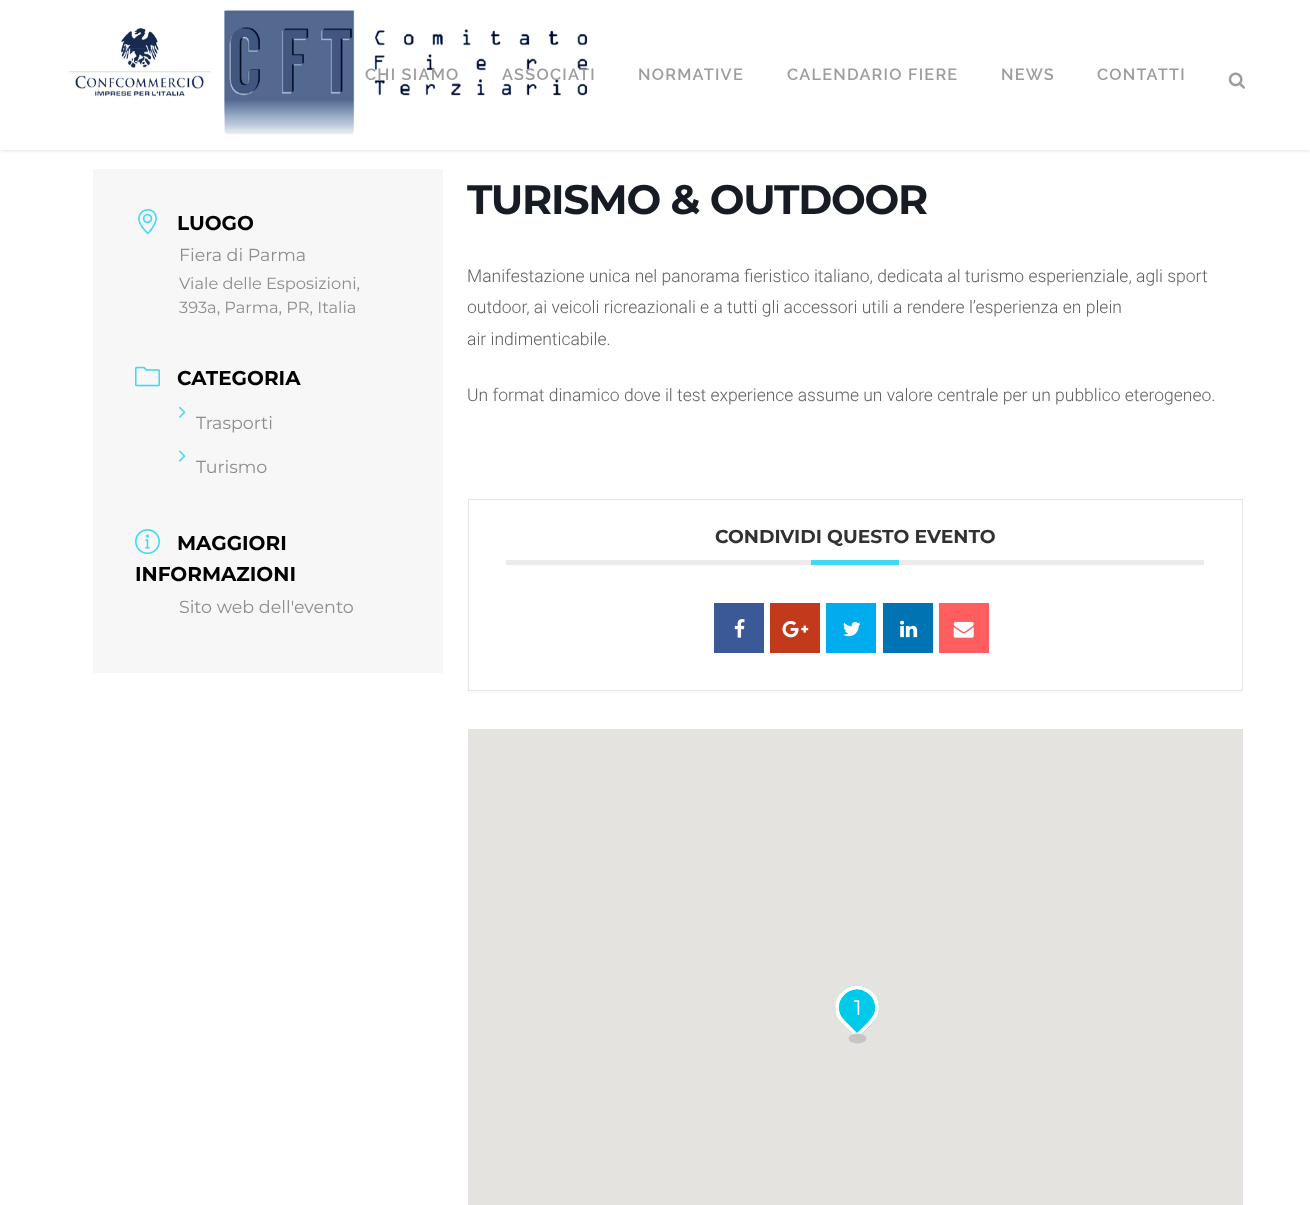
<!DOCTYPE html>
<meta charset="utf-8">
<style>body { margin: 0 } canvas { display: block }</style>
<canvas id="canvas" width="1310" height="1205"></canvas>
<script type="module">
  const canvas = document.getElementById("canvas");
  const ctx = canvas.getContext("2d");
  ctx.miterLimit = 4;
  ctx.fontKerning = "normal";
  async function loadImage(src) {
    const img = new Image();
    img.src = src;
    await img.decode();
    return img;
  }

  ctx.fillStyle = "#ffffff";
  ctx.fillRect(0, 0, 1310, 1205);
  ctx.fillStyle = "rgba(0, 0, 0, 0.11)";
  ctx.filter = "blur(2px)";
  ctx.beginPath();
  ctx.rect(0, 1, 1310, 150);
  ctx.fill();
  ctx.filter = "none";
  ctx.fillStyle = "#ffffff";
  ctx.fillRect(0, 0, 1310, 150);
  ctx.drawImage(await loadImage("img1.png"), 68, 10, 520, 125);
  ctx.letterSpacing = "1.25px";
  ctx.font = "600 16.25px Raleway";
  ctx.fillStyle = "#9d9d9d";
  ctx.fillText("CHI SIAMO", 365, 80);
  ctx.fillText("ASSOCIATI", 502, 80);
  ctx.fillText("NORMATIVE", 638, 80);
  ctx.fillText("CALENDARIO FIERE", 787, 80);
  ctx.fillText("NEWS", 1001, 80);
  ctx.fillText("CONTATTI", 1097, 80);
  ctx.drawImage(await loadImage("img2.png"), 1228, 72, 17, 17);
  ctx.fillStyle = "#f7f7f7";
  ctx.fillRect(93, 169, 350, 504);
  ctx.drawImage(await loadImage("img3.png"), 138, 209, 19, 25);
  ctx.letterSpacing = "0px";
  ctx.font = "bold 20px Montserrat";
  ctx.fillStyle = "#000000";
  ctx.fillText("LUOGO", 177, 230);
  ctx.font = "17.5px Montserrat";
  ctx.fillStyle = "#8d8d8d";
  ctx.fillText("Fiera di Parma", 179, 261);
  ctx.font = "16.25px Montserrat";
  ctx.fillText("Viale delle Esposizioni,", 179, 289);
  ctx.fillText("393a, Parma, PR, Italia", 179, 313);
  ctx.drawImage(await loadImage("img4.png"), 135, 366, 25, 21);
  ctx.font = "bold 20px Montserrat";
  ctx.fillStyle = "#000000";
  ctx.fillText("CATEGORIA", 177, 385);
  ctx.drawImage(await loadImage("img5.png"), 178, 406, 8, 12);
  ctx.font = "17.5px Montserrat";
  ctx.fillStyle = "#8d8d8d";
  ctx.fillText("Trasporti", 196, 429);
  ctx.drawImage(await loadImage("img6.png"), 178, 450, 8, 12);
  ctx.fillText("Turismo", 196, 473);
  ctx.drawImage(await loadImage("img7.png"), 135, 529, 25, 26);
  ctx.font = "bold 20px Montserrat";
  ctx.fillStyle = "#000000";
  ctx.fillText("MAGGIORI", 177, 550);
  ctx.fillText("INFORMAZIONI", 135, 581);
  ctx.font = "17.5px Montserrat";
  ctx.fillStyle = "#8d8d8d";
  ctx.fillText("Sito web dell'evento", 179, 613);
  ctx.letterSpacing = "-1.25px";
  ctx.font = "bold 41.25px Montserrat";
  ctx.fillStyle = "#171c24";
  ctx.fillText("TURISMO & OUTDOOR", 467, 214);
  ctx.letterSpacing = "0px";
  ctx.font = "300 17.5px Roboto";
  ctx.fillStyle = "#616161";
  ctx.fillText("Manifestazione unica nel panorama fieristico italiano, dedicata al turismo esperienziale, agli sport", 467, 282);
  ctx.fillText("outdoor, ai veicoli ricreazionali e a tutti gli accessori utili a rendere l’esperienza en plein", 467, 313);
  ctx.fillText("air indimenticabile.", 467, 345);
  ctx.fillText("Un format dinamico dove il test experience assume un valore centrale per un pubblico eterogeneo.", 467, 401);
  ctx.fillStyle = "#fbfbfb";
  ctx.beginPath();
  ctx.moveTo(468, 691);
  ctx.lineTo(468, 694);
  ctx.lineTo(1243, 694);
  ctx.lineTo(1243, 501);
  ctx.lineTo(1242, 501);
  ctx.lineTo(1242, 691);
  ctx.closePath();
  ctx.fill();
  ctx.strokeStyle = "#e6e6e6";
  ctx.strokeRect(468.5, 499.5, 774, 191);
  ctx.fillStyle = "#ebebeb";
  ctx.fillRect(506, 560, 698, 5);
  ctx.font = "bold 18.75px Montserrat";
  ctx.fillStyle = "#313131";
  ctx.fillText("CONDIVIDI QUESTO EVENTO", 715, 543);
  ctx.fillStyle = "#40d9f1";
  ctx.fillRect(811, 560, 88, 5);
  ctx.fillStyle = "#3b5996";
  ctx.fillRect(714, 603, 50, 50);
  ctx.drawImage(await loadImage("img8.png"), 734, 619, 11, 19);
  ctx.fillStyle = "#c3391c";
  ctx.fillRect(770, 603, 50, 50);
  ctx.drawImage(await loadImage("img9.png"), 782, 620, 27, 18);
  ctx.fillStyle = "#00acee";
  ctx.fillRect(826, 603, 50, 50);
  ctx.drawImage(await loadImage("img10.png"), 843, 622, 18, 15);
  ctx.fillStyle = "#0073b2";
  ctx.fillRect(883, 603, 50, 50);
  ctx.drawImage(await loadImage("img11.png"), 900, 620, 18, 18);
  ctx.fillStyle = "#ff5d5e";
  ctx.fillRect(939, 603, 50, 50);
  ctx.drawImage(await loadImage("img12.png"), 953, 621, 21, 17);
  ctx.fillStyle = "#e5e3df";
  ctx.fillRect(468, 729, 775, 476);
  ctx.fillStyle = "#00cae9";
  ctx.beginPath();
  ctx.moveTo(842, 992);
  ctx.bezierCurveTo(858, 975, 886, 994, 877, 1016);
  ctx.bezierCurveTo(874, 1023, 863, 1033, 857, 1038);
  ctx.lineTo(842, 1023);
  ctx.bezierCurveTo(833, 1014, 833, 1001, 842, 992);
  ctx.closePath();
  ctx.fill();
  ctx.beginPath();
  ctx.moveTo(843, 993.5);
  ctx.bezierCurveTo(858, 978, 883.5, 995, 875.5, 1015);
  ctx.bezierCurveTo(872.5, 1022, 862.5, 1030, 857, 1035.5);
  ctx.lineTo(843, 1021.5);
  ctx.bezierCurveTo(835, 1014, 835, 1001, 843, 993.5);
  ctx.closePath();
  ctx.strokeStyle = "#ffffff";
  ctx.lineWidth = 3.8;
  ctx.stroke();
  ctx.font = "21px Montserrat";
  ctx.fillStyle = "#ffffff";
  ctx.fillText("1", 854, 1015);
  ctx.fillStyle = "#c5c5c5";
  ctx.beginPath();
  ctx.ellipse(857.5, 1038.5, 9, 5, 0, 0, Math.PI * 2);
  ctx.fill();
</script>
